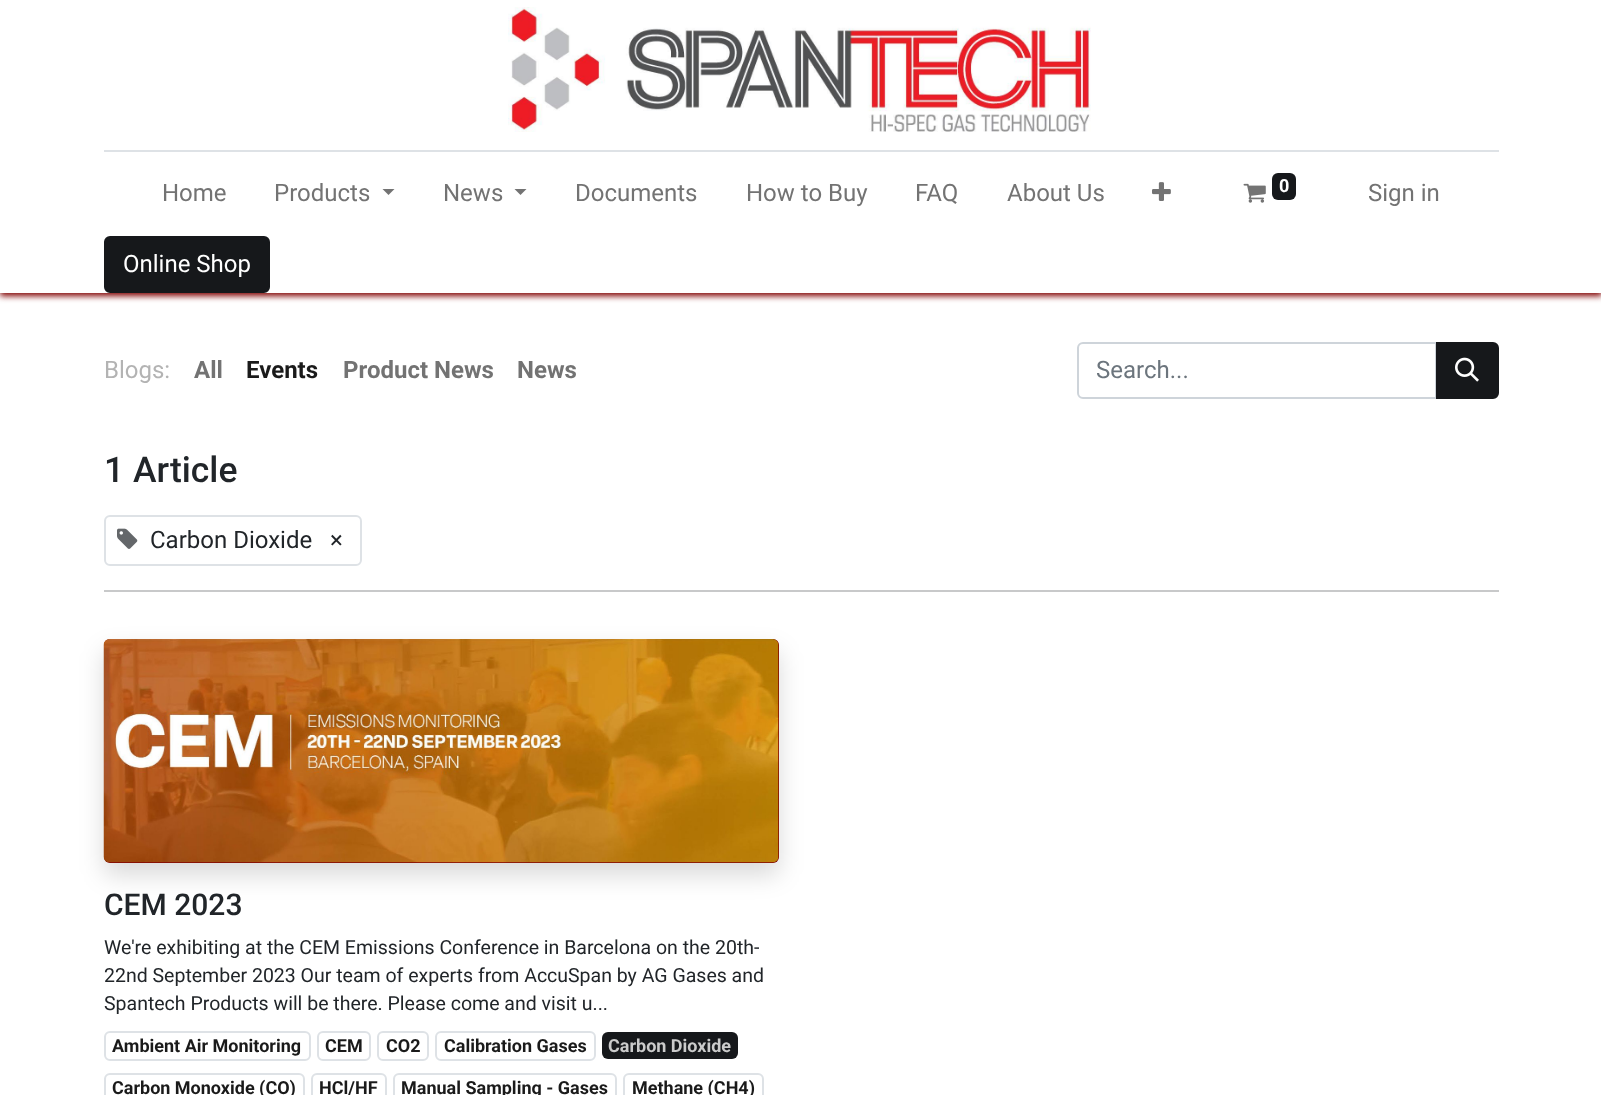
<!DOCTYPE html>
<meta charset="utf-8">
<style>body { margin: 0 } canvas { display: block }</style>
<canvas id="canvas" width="1601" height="1095"></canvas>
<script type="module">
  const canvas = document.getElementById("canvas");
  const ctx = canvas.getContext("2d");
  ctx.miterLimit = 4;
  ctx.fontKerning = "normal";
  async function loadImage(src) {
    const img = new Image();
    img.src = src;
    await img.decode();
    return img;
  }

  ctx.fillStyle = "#ffffff";
  ctx.fillRect(0, 0, 1601, 1095);
  ctx.fillStyle = "#800000";
  ctx.filter = "blur(3px)";
  ctx.beginPath();
  ctx.rect(0, 3, 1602, 293);
  ctx.fill();
  ctx.filter = "none";
  ctx.fillStyle = "#ffffff";
  ctx.fillRect(0, 0, 1601, 293);
  ctx.drawImage(await loadImage("img1.png"), 508, 7, 583, 125);
  ctx.fillStyle = "#dee2e6";
  ctx.fillRect(104, 150, 1395, 2);
  ctx.font = "24px Roboto";
  ctx.fillStyle = "#737373";
  ctx.fillText("Home", 162, 201);
  ctx.fillText("Products", 274, 201);
  ctx.beginPath();
  ctx.moveTo(382.5, 189);
  ctx.lineTo(394.5, 189);
  ctx.lineTo(388.5, 195);
  ctx.closePath();
  ctx.fill();
  ctx.fillText("News", 443, 201);
  ctx.beginPath();
  ctx.moveTo(514.5, 189);
  ctx.lineTo(526.5, 189);
  ctx.lineTo(520.5, 195);
  ctx.closePath();
  ctx.fill();
  ctx.fillText("Documents", 575, 201);
  ctx.fillText("How to Buy", 746, 201);
  ctx.fillText("FAQ", 915, 201);
  ctx.fillText("About Us", 1007, 201);
  ctx.drawImage(await loadImage("img2.png"), 1152, 182, 19, 19);
  ctx.drawImage(await loadImage("img3.png"), 1243, 183, 23, 20);
  ctx.fillStyle = "#16181b";
  ctx.beginPath();
  ctx.roundRect(1272, 173, 24, 27, 6);
  ctx.fill();
  ctx.font = "bold 18px Roboto";
  ctx.fillStyle = "#ffffff";
  ctx.fillText("0", 1279, 192);
  ctx.font = "24px Roboto";
  ctx.fillStyle = "#737373";
  ctx.fillText("Sign in", 1368, 201);
  ctx.fillStyle = "#16181b";
  ctx.beginPath();
  ctx.roundRect(105, 237, 164, 55, 5);
  ctx.fill();
  ctx.strokeStyle = "#16181b";
  ctx.lineWidth = 2;
  ctx.stroke();
  ctx.fillStyle = "#ffffff";
  ctx.fillText("Online Shop", 123, 272);
  ctx.fillStyle = "#b3b3b3";
  ctx.fillText("Blogs:", 104, 378);
  ctx.font = "bold 24px Roboto";
  ctx.fillStyle = "#737373";
  ctx.fillText("All", 194, 378);
  ctx.fillStyle = "#1a1a1a";
  ctx.fillText("Events", 246, 378);
  ctx.fillStyle = "#737373";
  ctx.fillText("Product News", 343, 378);
  ctx.fillText("News", 517, 378);
  ctx.beginPath();
  ctx.roundRect(1078, 343, 358, 55, [5, 0, 0, 5]);
  ctx.strokeStyle = "#ced4da";
  ctx.stroke();
  ctx.font = "24px Roboto";
  ctx.fillStyle = "#6c757d";
  ctx.fillText("Search...", 1096, 378);
  ctx.fillStyle = "#16181b";
  ctx.beginPath();
  ctx.roundRect(1437, 343, 61, 55, [0, 5, 5, 0]);
  ctx.fill();
  ctx.strokeStyle = "#16181b";
  ctx.stroke();
  ctx.drawImage(await loadImage("img4.png"), 1455, 357, 24, 25);
  ctx.font = "500 35.5px Roboto";
  ctx.fillStyle = "#212529";
  ctx.fillText("1 Article", 104, 482);
  ctx.beginPath();
  ctx.roundRect(105, 516, 256, 49, 5);
  ctx.strokeStyle = "#dee2e6";
  ctx.stroke();
  ctx.drawImage(await loadImage("img5.png"), 117, 528, 21, 21);
  ctx.font = "24px Roboto";
  ctx.fillText("Carbon Dioxide", 150, 548);
  ctx.fillText("×", 330, 548);
  ctx.fillStyle = "#c8c9ca";
  ctx.fillRect(104, 590, 1395, 2);
  ctx.fillStyle = "rgba(0, 0, 0, 0.15)";
  ctx.filter = "blur(12px)";
  ctx.beginPath();
  ctx.roundRect(104, 651, 675, 224, 6);
  ctx.fill();
  ctx.filter = "none";
  ctx.fillStyle = "#800000";
  ctx.beginPath();
  ctx.roundRect(104, 639, 675, 224, 6);
  ctx.fill();
  ctx.drawImage(await loadImage("img6.png"), 103, 639, 676, 224);
  ctx.font = "500 30px Roboto";
  ctx.fillStyle = "#212529";
  ctx.fillText("CEM 2023", 104, 915);
  ctx.font = "19.5px Roboto";
  ctx.fillText("We're exhibiting at the CEM Emissions Conference in Barcelona on the 20th-", 104, 954);
  ctx.fillText("22nd September 2023 Our team of experts from AccuSpan by AG Gases and", 104, 982);
  ctx.fillText("Spantech Products will be there. Please come and visit u...", 104, 1010);
  ctx.beginPath();
  ctx.roundRect(105, 1032, 205, 28, 5);
  ctx.stroke();
  ctx.font = "bold 18px Roboto";
  ctx.fillStyle = "#1a1a1a";
  ctx.fillText("Ambient Air Monitoring", 112, 1052);
  ctx.beginPath();
  ctx.roundRect(318, 1032, 52, 28, 5);
  ctx.stroke();
  ctx.fillText("CEM", 325, 1052);
  ctx.beginPath();
  ctx.roundRect(378, 1032, 50, 28, 5);
  ctx.stroke();
  ctx.fillText("CO2", 386, 1052);
  ctx.beginPath();
  ctx.roundRect(436, 1032, 159, 28, 5);
  ctx.stroke();
  ctx.fillText("Calibration Gases", 444, 1052);
  ctx.fillStyle = "#16181b";
  ctx.beginPath();
  ctx.roundRect(602, 1032, 136, 27, 6);
  ctx.fill();
  ctx.fillStyle = "#cbcbcb";
  ctx.fillText("Carbon Dioxide", 608, 1052);
  ctx.beginPath();
  ctx.roundRect(105, 1074, 199, 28, 5);
  ctx.stroke();
  ctx.fillStyle = "#1a1a1a";
  ctx.fillText("Carbon Monoxide (CO)", 112, 1094);
  ctx.beginPath();
  ctx.roundRect(312, 1074, 74, 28, 5);
  ctx.stroke();
  ctx.fillText("HCl/HF", 319, 1094);
  ctx.beginPath();
  ctx.roundRect(394, 1074, 222, 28, 5);
  ctx.stroke();
  ctx.fillText("Manual Sampling - Gases", 401, 1094);
  ctx.beginPath();
  ctx.roundRect(624, 1074, 139, 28, 5);
  ctx.stroke();
  ctx.fillText("Methane (CH4)", 632, 1094);
</script>
